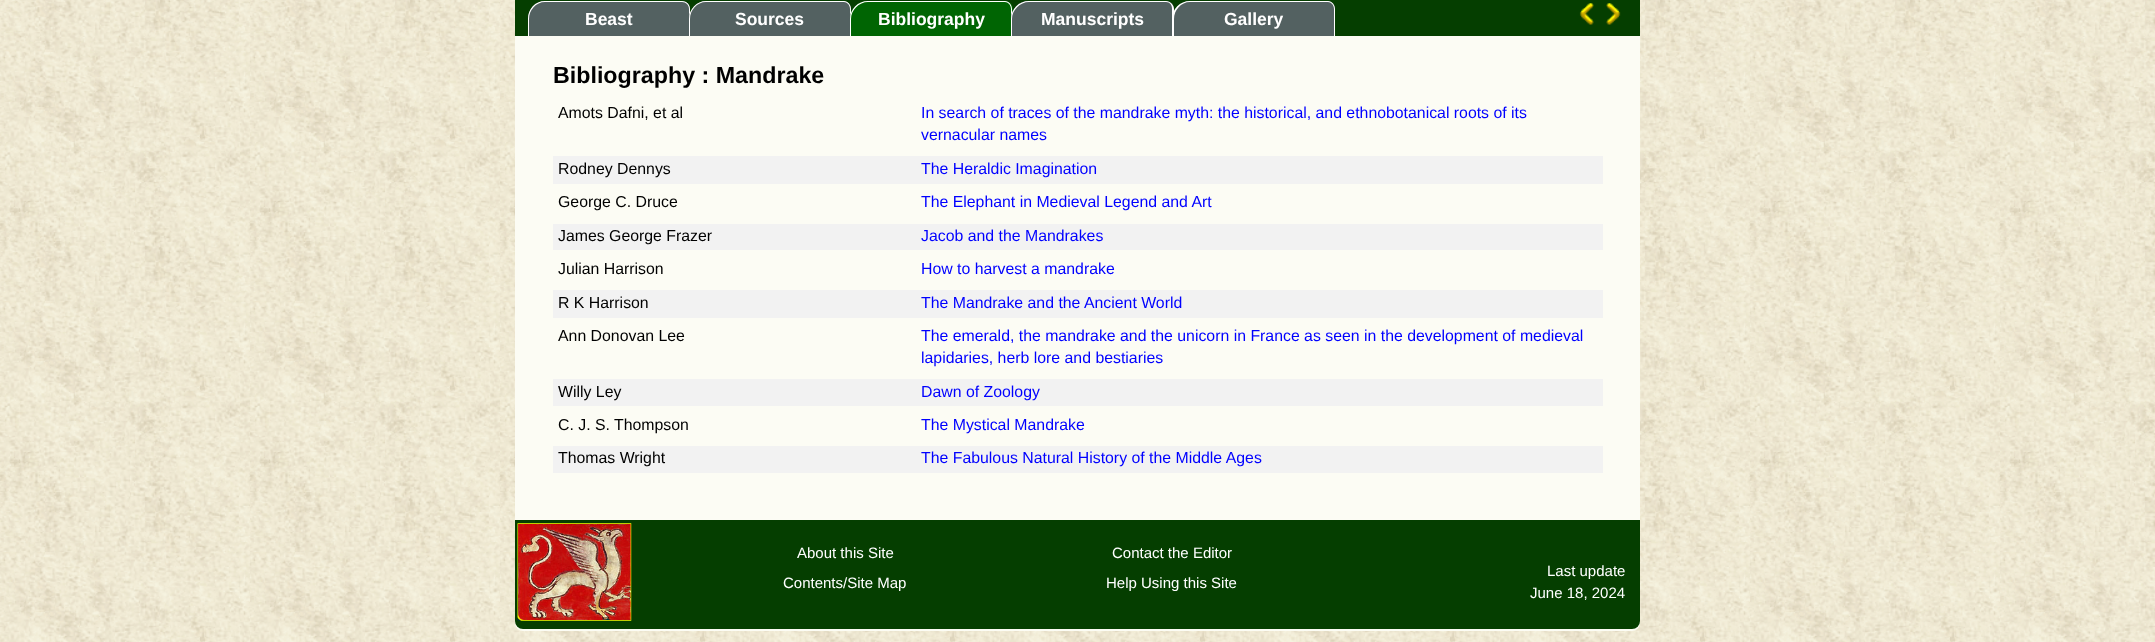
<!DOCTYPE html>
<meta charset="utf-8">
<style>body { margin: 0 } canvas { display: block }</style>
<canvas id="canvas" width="2155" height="642"></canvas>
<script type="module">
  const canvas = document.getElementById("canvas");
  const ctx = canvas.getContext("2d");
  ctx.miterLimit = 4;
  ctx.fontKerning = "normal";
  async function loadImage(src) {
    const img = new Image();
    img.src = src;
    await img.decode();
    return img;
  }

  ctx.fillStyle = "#ffffff";
  ctx.fillRect(0, 0, 2155, 642);
  ctx.drawImage(await loadImage("img1.png"), 0, 0, 2155, 642);
  ctx.fillStyle = "#fcfcf4";
  ctx.beginPath();
  ctx.roundRect(515, -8, 1125, 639, 8);
  ctx.fill();
  ctx.fillStyle = "#053e00";
  ctx.fillRect(515, 0, 1125, 36);
  ctx.fillStyle = "#536161";
  ctx.beginPath();
  ctx.roundRect(528, 1, 162, 35, [17.5, 8, 0, 0]);
  ctx.fill();
  ctx.fillStyle = "#ffffff";
  ctx.beginPath();
  ctx.moveTo(545, 1);
  ctx.lineTo(682, 1);
  ctx.bezierCurveTo(687, 1, 690, 5, 690, 9);
  ctx.lineTo(690, 36);
  ctx.lineTo(528, 36);
  ctx.lineTo(528, 19);
  ctx.bezierCurveTo(528, 9, 535, 1, 545, 1);
  ctx.closePath();
  ctx.moveTo(545, 2);
  ctx.lineTo(682, 2);
  ctx.bezierCurveTo(686, 2, 689, 5, 689, 9);
  ctx.lineTo(689, 36);
  ctx.lineTo(529, 36);
  ctx.lineTo(529, 19);
  ctx.bezierCurveTo(529, 10, 536, 2, 545, 2);
  ctx.closePath();
  ctx.fill("evenodd");
  ctx.font = "bold 17.5px Liberation Sans";
  ctx.fillText("Beast", 585, 25);
  ctx.fillStyle = "#536161";
  ctx.beginPath();
  ctx.roundRect(689, 1, 162, 35, [17.5, 8, 0, 0]);
  ctx.fill();
  ctx.fillStyle = "#ffffff";
  ctx.beginPath();
  ctx.moveTo(706, 1);
  ctx.lineTo(844, 1);
  ctx.bezierCurveTo(848, 1, 851, 5, 851, 9);
  ctx.lineTo(851, 36);
  ctx.lineTo(689, 36);
  ctx.lineTo(689, 19);
  ctx.bezierCurveTo(689, 9, 697, 1, 706, 1);
  ctx.closePath();
  ctx.moveTo(706, 2);
  ctx.lineTo(844, 2);
  ctx.bezierCurveTo(847, 2, 850, 5, 850, 9);
  ctx.lineTo(850, 36);
  ctx.lineTo(690, 36);
  ctx.lineTo(690, 19);
  ctx.bezierCurveTo(690, 10, 697, 2, 706, 2);
  ctx.closePath();
  ctx.fill("evenodd");
  ctx.fillText("Sources", 735, 25);
  ctx.fillStyle = "#006503";
  ctx.beginPath();
  ctx.roundRect(850, 1, 163, 35, [17.5, 8, 0, 0]);
  ctx.fill();
  ctx.fillStyle = "#ffffff";
  ctx.beginPath();
  ctx.moveTo(868, 1);
  ctx.lineTo(1005, 1);
  ctx.bezierCurveTo(1009, 1, 1012, 5, 1012, 9);
  ctx.lineTo(1012, 36);
  ctx.lineTo(850, 36);
  ctx.lineTo(850, 19);
  ctx.bezierCurveTo(850, 9, 858, 1, 868, 1);
  ctx.closePath();
  ctx.moveTo(868, 2);
  ctx.lineTo(1005, 2);
  ctx.bezierCurveTo(1008, 2, 1011, 5, 1011, 9);
  ctx.lineTo(1011, 36);
  ctx.lineTo(851, 36);
  ctx.lineTo(851, 19);
  ctx.bezierCurveTo(851, 10, 859, 2, 868, 2);
  ctx.closePath();
  ctx.fill("evenodd");
  ctx.fillText("Bibliography", 878, 25);
  ctx.fillStyle = "#536161";
  ctx.beginPath();
  ctx.roundRect(1011, 1, 163, 35, [17.5, 8, 0, 0]);
  ctx.fill();
  ctx.fillStyle = "#ffffff";
  ctx.beginPath();
  ctx.moveTo(1029, 1);
  ctx.lineTo(1166, 1);
  ctx.bezierCurveTo(1170, 1, 1174, 5, 1174, 9);
  ctx.lineTo(1174, 36);
  ctx.lineTo(1011, 36);
  ctx.lineTo(1011, 19);
  ctx.bezierCurveTo(1011, 9, 1019, 1, 1029, 1);
  ctx.closePath();
  ctx.moveTo(1029, 2);
  ctx.lineTo(1166, 2);
  ctx.bezierCurveTo(1170, 2, 1172, 5, 1172, 9);
  ctx.lineTo(1172, 36);
  ctx.lineTo(1012, 36);
  ctx.lineTo(1012, 19);
  ctx.bezierCurveTo(1012, 10, 1020, 2, 1029, 2);
  ctx.closePath();
  ctx.fill("evenodd");
  ctx.fillText("Manuscripts", 1041, 25);
  ctx.fillStyle = "#536161";
  ctx.beginPath();
  ctx.roundRect(1173, 1, 162, 35, [17.5, 8, 0, 0]);
  ctx.fill();
  ctx.fillStyle = "#ffffff";
  ctx.beginPath();
  ctx.moveTo(1190, 1);
  ctx.lineTo(1328, 1);
  ctx.bezierCurveTo(1332, 1, 1335, 5, 1335, 9);
  ctx.lineTo(1335, 36);
  ctx.lineTo(1172, 36);
  ctx.lineTo(1172, 19);
  ctx.bezierCurveTo(1172, 9, 1180, 1, 1190, 1);
  ctx.closePath();
  ctx.moveTo(1190, 2);
  ctx.lineTo(1328, 2);
  ctx.bezierCurveTo(1331, 2, 1334, 5, 1334, 9);
  ctx.lineTo(1334, 36);
  ctx.lineTo(1174, 36);
  ctx.lineTo(1174, 19);
  ctx.bezierCurveTo(1174, 10, 1181, 2, 1190, 2);
  ctx.closePath();
  ctx.fill("evenodd");
  ctx.fillText("Gallery", 1224, 25);
  ctx.drawImage(await loadImage("img2.png"), 1579, 3, 15, 22);
  ctx.drawImage(await loadImage("img3.png"), 1606, 3, 15, 22);
  ctx.font = "bold 23.25px Liberation Sans";
  ctx.fillStyle = "#000000";
  ctx.fillText("Bibliography : Mandrake", 553, 83);
  ctx.font = "15.85px Liberation Sans";
  ctx.fillText("Amots Dafni, et al", 558, 118);
  ctx.fillStyle = "#0000ff";
  ctx.fillText("In search of traces of the mandrake myth: the historical, and ethnobotanical roots of its", 921, 118);
  ctx.fillText("vernacular names", 921, 140);
  ctx.fillStyle = "#f2f2f2";
  ctx.fillRect(553, 156, 1050, 28);
  ctx.fillStyle = "#000000";
  ctx.fillText("Rodney Dennys", 558, 174);
  ctx.fillStyle = "#0000ff";
  ctx.fillText("The Heraldic Imagination", 921, 174);
  ctx.fillStyle = "#000000";
  ctx.fillText("George C. Druce", 558, 207);
  ctx.fillStyle = "#0000ff";
  ctx.fillText("The Elephant in Medieval Legend and Art", 921, 207);
  ctx.fillStyle = "#f2f2f2";
  ctx.fillRect(553, 224, 1050, 26);
  ctx.fillStyle = "#000000";
  ctx.fillText("James George Frazer", 558, 241);
  ctx.fillStyle = "#0000ff";
  ctx.fillText("Jacob and the Mandrakes", 921, 241);
  ctx.fillStyle = "#000000";
  ctx.fillText("Julian Harrison", 558, 274);
  ctx.fillStyle = "#0000ff";
  ctx.fillText("How to harvest a mandrake", 921, 274);
  ctx.fillStyle = "#f2f2f2";
  ctx.fillRect(553, 290, 1050, 28);
  ctx.fillStyle = "#000000";
  ctx.fillText("R K Harrison", 558, 308);
  ctx.fillStyle = "#0000ff";
  ctx.fillText("The Mandrake and the Ancient World", 921, 308);
  ctx.fillStyle = "#000000";
  ctx.fillText("Ann Donovan Lee", 558, 341);
  ctx.fillStyle = "#0000ff";
  ctx.fillText("The emerald, the mandrake and the unicorn in France as seen in the development of medieval", 921, 341);
  ctx.fillText("lapidaries, herb lore and bestiaries", 921, 363);
  ctx.fillStyle = "#f2f2f2";
  ctx.fillRect(553, 379, 1050, 27);
  ctx.fillStyle = "#000000";
  ctx.fillText("Willy Ley", 558, 397);
  ctx.fillStyle = "#0000ff";
  ctx.fillText("Dawn of Zoology", 921, 397);
  ctx.fillStyle = "#000000";
  ctx.fillText("C. J. S. Thompson", 558, 430);
  ctx.fillStyle = "#0000ff";
  ctx.fillText("The Mystical Mandrake", 921, 430);
  ctx.fillStyle = "#f2f2f2";
  ctx.fillRect(553, 446, 1050, 27);
  ctx.fillStyle = "#000000";
  ctx.fillText("Thomas Wright", 558, 463);
  ctx.fillStyle = "#0000ff";
  ctx.fillText("The Fabulous Natural History of the Middle Ages", 921, 463);
  ctx.fillStyle = "#053e00";
  ctx.beginPath();
  ctx.roundRect(515, 520, 1125, 109, [0, 0, 8, 8]);
  ctx.fill();
  ctx.drawImage(await loadImage("img4.png"), 517, 523, 115, 98);
  ctx.font = "15px Liberation Sans";
  ctx.fillStyle = "#ffffff";
  ctx.fillText("About this Site", 797, 558);
  ctx.fillText("Contents/Site Map", 783, 588);
  ctx.fillText("Contact the Editor", 1112, 558);
  ctx.fillText("Help Using this Site", 1106, 588);
  ctx.fillText("Last update", 1547, 576);
  ctx.fillText("June 18, 2024", 1530, 598);
</script>
